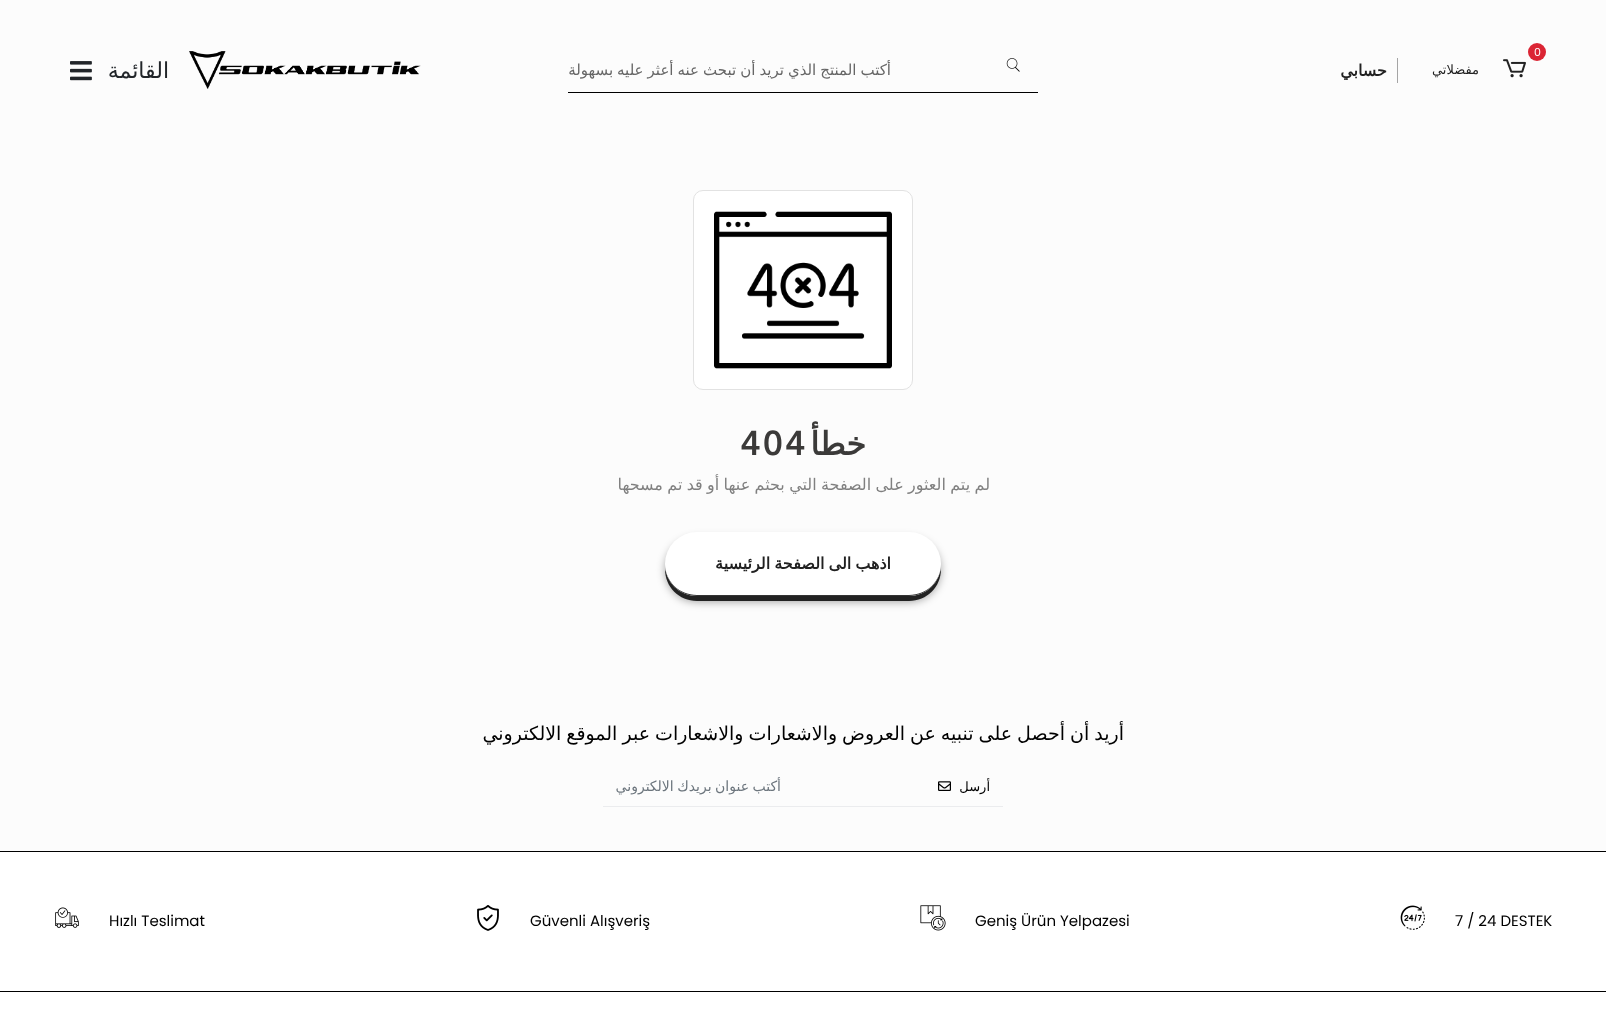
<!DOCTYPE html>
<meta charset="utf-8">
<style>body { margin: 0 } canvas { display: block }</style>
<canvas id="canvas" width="1606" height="1035"></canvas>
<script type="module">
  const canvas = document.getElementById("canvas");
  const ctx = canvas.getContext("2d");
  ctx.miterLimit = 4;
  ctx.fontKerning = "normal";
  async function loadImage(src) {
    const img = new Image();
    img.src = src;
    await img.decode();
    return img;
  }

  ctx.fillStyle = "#fcfcfc";
  ctx.fillRect(0, 0, 1606, 1035);
  ctx.fillStyle = "#db2534";
  ctx.beginPath();
  ctx.arc(1537, 52, 9, 0, Math.PI * 2);
  ctx.fill();
  ctx.font = "11px Poppins";
  ctx.fillStyle = "#ffffff";
  ctx.fillText("0", 1534, 56);
  ctx.drawImage(await loadImage("img1.png"), 1503, 59, 23, 19);
  ctx.direction = "rtl";
  ctx.font = "13px DejaVu Sans";
  ctx.fillStyle = "#212121";
  ctx.fillText("مفضلاتي", 1479, 74);
  ctx.fillStyle = "#a5a5a5";
  ctx.fillRect(1397, 58, 1, 25);
  ctx.font = "bold 16px DejaVu Sans";
  ctx.fillStyle = "#212121";
  ctx.fillText("حسابي", 1387, 76);
  ctx.fillStyle = "#000000";
  ctx.fillRect(568, 92, 470, 1);
  ctx.drawImage(await loadImage("img2.png"), 1006, 58, 14, 14);
  ctx.wordSpacing = "-0.75px";
  ctx.font = "15px DejaVu Sans";
  ctx.fillStyle = "#666666";
  ctx.fillText("أكتب المنتج الذي تريد أن تبحث عنه أعثر عليه بسهولة", 891, 75);
  ctx.drawImage(await loadImage("img3.png"), 189, 51, 232, 38);
  ctx.wordSpacing = "0px";
  ctx.font = "22px DejaVu Sans";
  ctx.fillStyle = "#212529";
  ctx.fillText("القائمة", 169, 78);
  ctx.drawImage(await loadImage("img4.png"), 70, 61, 22, 20);
  ctx.fillStyle = "#ffffff";
  ctx.beginPath();
  ctx.roundRect(693.5, 190.5, 219, 199, 9.5);
  ctx.fill();
  ctx.strokeStyle = "#e2e2e2";
  ctx.stroke();
  ctx.drawImage(await loadImage("img5.png"), 714, 211, 178, 158);
  ctx.letterSpacing = "2px";
  ctx.font = "bold 32px DejaVu Sans";
  ctx.fillStyle = "#3b3a39";
  ctx.fillText("خطأ", 866, 455);
  ctx.direction = "ltr";
  ctx.fillText("404", 740, 455);
  ctx.letterSpacing = "0px";
  ctx.wordSpacing = "-0.75px";
  ctx.direction = "rtl";
  ctx.font = "16px DejaVu Sans";
  ctx.fillStyle = "#808080";
  ctx.fillText("لم يتم العثور على الصفحة التي بحثم عنها أو قد تم مسحها", 990, 490);
  ctx.fillStyle = "rgba(0, 0, 0, 0.35)";
  ctx.filter = "blur(4px)";
  ctx.beginPath();
  ctx.roundRect(665, 538, 276, 64, 32);
  ctx.fill();
  ctx.filter = "none";
  ctx.fillStyle = "#222222";
  ctx.beginPath();
  ctx.moveTo(665, 566);
  ctx.lineTo(665, 569);
  ctx.bezierCurveTo(665, 587, 679, 601, 697, 601);
  ctx.lineTo(909, 601);
  ctx.bezierCurveTo(927, 601, 941, 587, 941, 569);
  ctx.lineTo(941, 566);
  ctx.bezierCurveTo(940, 583, 926, 596, 909, 596);
  ctx.lineTo(697, 596);
  ctx.bezierCurveTo(680, 596, 666, 583, 665, 566);
  ctx.closePath();
  ctx.fill();
  ctx.fillStyle = "#ffffff";
  ctx.beginPath();
  ctx.roundRect(665, 532, 276, 64, 32);
  ctx.fill();
  ctx.fillStyle = "#333333";
  ctx.beginPath();
  ctx.moveTo(665, 564);
  ctx.bezierCurveTo(665, 582, 679, 596, 697, 596);
  ctx.lineTo(909, 596);
  ctx.bezierCurveTo(927, 596, 941, 582, 941, 564);
  ctx.bezierCurveTo(941, 581, 927, 595, 909, 595);
  ctx.lineTo(697, 595);
  ctx.bezierCurveTo(679, 595, 665, 581, 665, 564);
  ctx.closePath();
  ctx.fill();
  ctx.wordSpacing = "-1px";
  ctx.font = "bold 16px DejaVu Sans";
  ctx.fillStyle = "#212121";
  ctx.fillText("اذهب الى الصفحة الرئيسية", 891, 569);
  ctx.font = "19px DejaVu Sans";
  ctx.fillStyle = "#000000";
  ctx.fillText("أريد أن أحصل على تنبيه عن العروض والاشعارات والاشعارات عبر الموقع الالكتروني", 1124, 740);
  ctx.wordSpacing = "0px";
  ctx.font = "13px DejaVu Sans";
  ctx.fillText("أرسل", 990, 791);
  ctx.drawImage(await loadImage("img6.png"), 938, 781, 13, 10);
  ctx.fillStyle = "#ebecee";
  ctx.fillRect(603, 806, 400, 1);
  ctx.wordSpacing = "-1px";
  ctx.font = "14px DejaVu Sans";
  ctx.fillStyle = "#6c757d";
  ctx.fillText("أكتب عنوان بريدك الالكتروني", 781, 791);
  ctx.fillStyle = "#ffffff";
  ctx.fillRect(0, 852, 1606, 183);
  ctx.fillStyle = "#000000";
  ctx.fillRect(0, 851, 1606, 1);
  ctx.fillRect(0, 991, 1606, 1);
  ctx.wordSpacing = "0px";
  ctx.direction = "ltr";
  ctx.font = "15px Poppins";
  ctx.fillText("7 / 24 DESTEK", 1455, 926);
  ctx.drawImage(await loadImage("img7.png"), 1400, 905, 25, 25);
  ctx.fillText("Geniş Ürün Yelpazesi", 975, 926);
  ctx.drawImage(await loadImage("img8.png"), 920, 905, 26, 26);
  ctx.fillText("Güvenli Alışveriş", 530, 926);
  ctx.drawImage(await loadImage("img9.png"), 477, 905, 22, 26);
  ctx.fillText("Hızlı Teslimat", 109, 926);
  ctx.drawImage(await loadImage("img10.png"), 55, 907, 24, 21);
</script>
